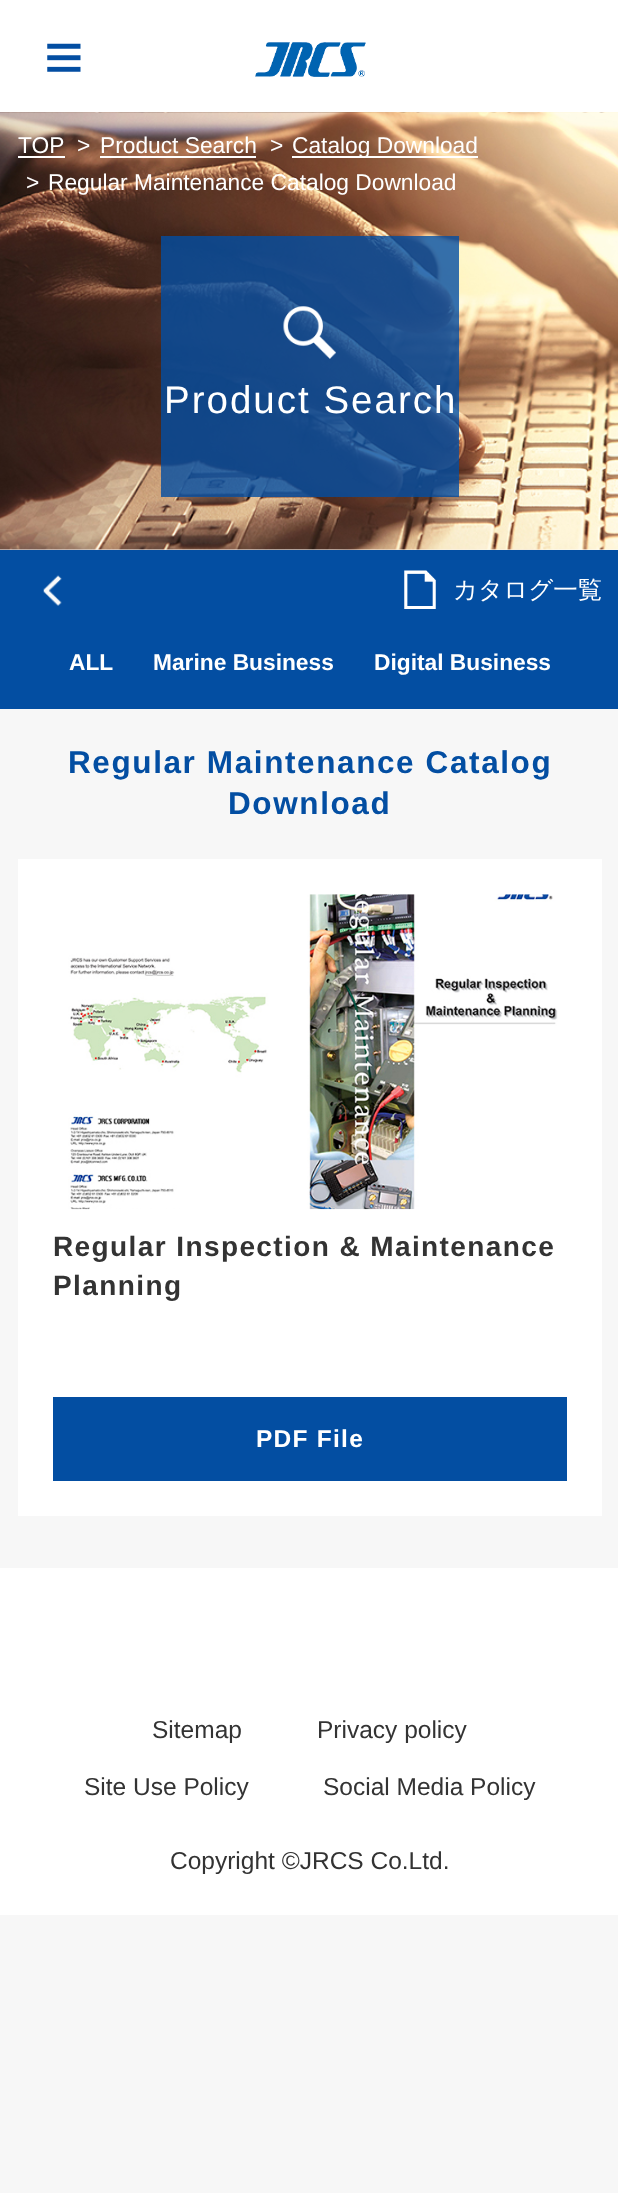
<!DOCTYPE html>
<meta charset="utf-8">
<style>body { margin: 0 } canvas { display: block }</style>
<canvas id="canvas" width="618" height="2193"></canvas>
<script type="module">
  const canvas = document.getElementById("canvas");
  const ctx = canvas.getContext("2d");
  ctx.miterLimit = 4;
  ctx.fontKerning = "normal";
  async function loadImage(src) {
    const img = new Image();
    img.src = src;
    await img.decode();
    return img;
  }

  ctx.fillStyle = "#f7f7f7";
  ctx.fillRect(0, 0, 618, 2193);
  ctx.fillStyle = "#ffffff";
  ctx.fillRect(0, 0, 618, 112);
  ctx.drawImage(await loadImage("img1.png"), 47, 43, 34, 29);
  ctx.drawImage(await loadImage("img2.png"), 255, 42, 111, 35);
  ctx.drawImage(await loadImage("img3.png"), 0, 112, 618, 438);
  ctx.font = "22.75px Liberation Sans";
  ctx.fillText("TOP", 18, 153);
  ctx.fillRect(18, 156, 47, 2);
  ctx.fillText(">", 77, 153);
  ctx.fillText("Product Search", 100, 153);
  ctx.fillRect(100, 156, 156, 2);
  ctx.fillText(">", 270, 153);
  ctx.fillRect(292, 156, 186, 2);
  ctx.fillText("Catalog Download", 292, 153);
  ctx.fillText(">", 26, 190);
  ctx.fillText("Regular Maintenance Catalog Download", 48, 190);
  ctx.fillStyle = "rgba(3, 78, 162, 0.8)";
  ctx.fillRect(161, 236, 298, 261);
  ctx.drawImage(await loadImage("img4.png"), 283, 306, 53, 53);
  ctx.letterSpacing = "2px";
  ctx.font = "38.5px Liberation Sans";
  ctx.fillStyle = "#ffffff";
  ctx.fillText("Product Search", 164, 413);
  ctx.fillStyle = "#034ea2";
  ctx.fillRect(0, 550, 618, 159);
  ctx.drawImage(await loadImage("img5.png"), 43, 575, 19, 31);
  ctx.drawImage(await loadImage("img6.png"), 404, 570, 32, 39);
  ctx.letterSpacing = "0px";
  ctx.font = "500 24.5px WenQuanYi Zen Hei";
  ctx.fillStyle = "#ffffff";
  ctx.fillText("カタログ一覧", 453, 598);
  ctx.font = "bold 22.75px Liberation Sans";
  ctx.fillText("ALL", 69, 670);
  ctx.fillText("Marine Business", 153, 670);
  ctx.fillText("Digital Business", 374, 670);
  ctx.letterSpacing = "1.6px";
  ctx.font = "bold 31.5px Liberation Sans";
  ctx.fillStyle = "#034ea2";
  ctx.fillText("Regular Maintenance Catalog", 68, 773);
  ctx.fillText("Download", 228, 814);
  ctx.fillStyle = "#ffffff";
  ctx.fillRect(18, 859, 584, 657);
  ctx.drawImage(await loadImage("img7.png"), 68, 894, 490, 316);
  ctx.letterSpacing = "1.4px";
  ctx.font = "bold 28px Liberation Sans";
  ctx.fillStyle = "#333333";
  ctx.fillText("Regular Inspection & Maintenance", 53, 1256);
  ctx.fillText("Planning", 53, 1295);
  ctx.fillStyle = "#034ea2";
  ctx.fillRect(53, 1397, 514, 84);
  ctx.letterSpacing = "1.25px";
  ctx.font = "bold 24.5px Liberation Sans";
  ctx.fillStyle = "#ffffff";
  ctx.fillText("PDF File", 256, 1447);
  ctx.fillRect(0, 1568, 618, 347);
  ctx.letterSpacing = "0px";
  ctx.font = "24.5px Liberation Sans";
  ctx.fillStyle = "#333333";
  ctx.fillText("Sitemap", 152, 1738);
  ctx.fillText("Privacy policy", 317, 1738);
  ctx.fillText("Site Use Policy", 84, 1795);
  ctx.fillText("Social Media Policy", 323, 1795);
  ctx.fillText("Copyright ©JRCS Co.Ltd.", 170, 1869);
</script>
